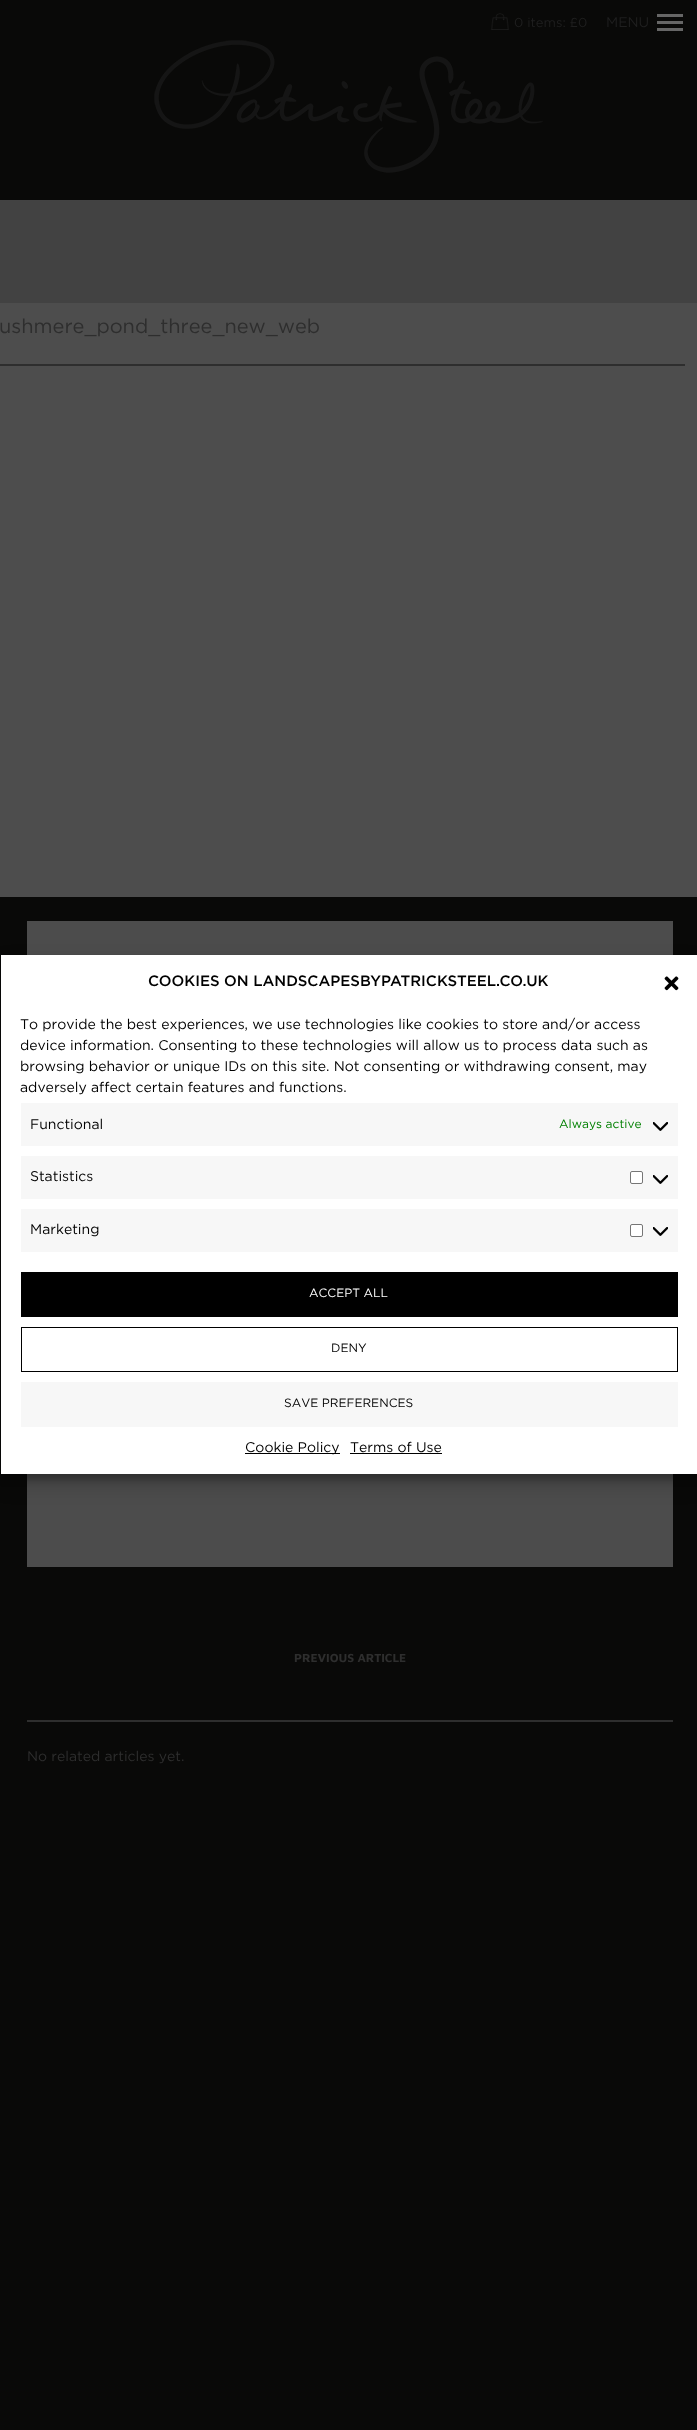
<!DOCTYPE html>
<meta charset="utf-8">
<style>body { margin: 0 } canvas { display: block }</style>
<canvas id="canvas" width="697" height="2430"></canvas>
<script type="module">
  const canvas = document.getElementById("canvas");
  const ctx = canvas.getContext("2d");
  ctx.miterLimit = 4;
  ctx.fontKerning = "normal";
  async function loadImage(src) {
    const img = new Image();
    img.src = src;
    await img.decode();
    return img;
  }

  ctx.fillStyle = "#090908";
  ctx.fillRect(0, 0, 697, 2430);
  ctx.font = "14px Gotham";
  ctx.fillStyle = "#1f1f1f";
  ctx.fillText("MENU", 606, 27);
  ctx.drawImage(await loadImage("img1.png"), 154, 40, 389, 133);
  ctx.fillStyle = "#666666";
  ctx.fillRect(657, 21, 26, 3);
  ctx.fillRect(657, 14, 26, 3);
  ctx.fillRect(657, 28, 26, 3);
  ctx.fillStyle = "#4d4d4d";
  ctx.fillRect(0, 303, 697, 594);
  ctx.fillStyle = "#424242";
  ctx.fillRect(0, 200, 697, 103);
  ctx.fillStyle = "#2e2e2e";
  ctx.fillRect(0, 364, 685, 2);
  ctx.font = "20px Gotham";
  ctx.fillText("ushmere_pond_three_new_web", -1, 333);
  ctx.drawImage(await loadImage("img2.png"), 27, 921, 646, 646);
  ctx.font = "bold 12px Maven Pro";
  ctx.fillText("PREVIOUS ARTICLE", 294, 1662);
  ctx.fillRect(27, 1720, 646, 2);
  ctx.font = "14px Gotham";
  ctx.fillText("No related articles yet.", 27, 1761);
  ctx.drawImage(await loadImage("img3.png"), 490, 13, 20, 17);
  ctx.font = "13px Gotham";
  ctx.fillStyle = "#1f1f1f";
  ctx.fillText("0 items: £0", 514, 27);
  ctx.fillStyle = "rgba(0, 0, 0, 0.23)";
  ctx.filter = "blur(3px)";
  ctx.beginPath();
  ctx.rect(1, 961, 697, 519);
  ctx.fill();
  ctx.filter = "none";
  ctx.fillStyle = "rgba(0, 0, 0, 0.19)";
  ctx.filter = "blur(10px)";
  ctx.beginPath();
  ctx.rect(1, 965, 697, 519);
  ctx.fill();
  ctx.filter = "none";
  ctx.fillStyle = "#ffffff";
  ctx.fillRect(1, 955, 696, 519);
  ctx.font = "500 15px Gotham";
  ctx.fillStyle = "#000000";
  ctx.fillText("COOKIES ON LANDSCAPESBYPATRICKSTEEL.CO.UK", 148, 986);
  ctx.drawImage(await loadImage("img4.png"), 664, 976, 15, 15);
  ctx.font = "14px Gotham";
  ctx.fillText("To provide the best experiences, we use technologies like cookies to store and/or access", 20, 1029);
  ctx.save();
  ctx.beginPath();
  ctx.rect(21, 1014, 657, 238);
  ctx.clip();
  ctx.fillText("device information. Consenting to these technologies will allow us to process data such as", 20, 1050);
  ctx.restore();
  ctx.fillText("browsing behavior or unique IDs on this site. Not consenting or withdrawing consent, may", 20, 1071);
  ctx.fillText("adversely affect certain features and functions.", 20, 1092);
  ctx.fillStyle = "#f7f7f7";
  ctx.fillRect(21, 1103, 657, 43);
  ctx.fillStyle = "#000000";
  ctx.fillText("Functional", 30, 1129);
  ctx.font = "12px Gotham";
  ctx.fillStyle = "#008000";
  ctx.fillText("Always active", 559, 1128);
  ctx.drawImage(await loadImage("img5.png"), 653, 1122, 15, 9);
  ctx.fillStyle = "#f7f7f7";
  ctx.fillRect(21, 1156, 657, 43);
  ctx.font = "14px Gotham";
  ctx.fillStyle = "#000000";
  ctx.fillText("Statistics", 30, 1181);
  ctx.fillStyle = "#ffffff";
  ctx.beginPath();
  ctx.roundRect(630.5, 1171.5, 12, 12, 1.5);
  ctx.fill();
  ctx.strokeStyle = "#767676";
  ctx.stroke();
  ctx.drawImage(await loadImage("img5.png"), 653, 1175, 15, 9);
  ctx.fillStyle = "#f7f7f7";
  ctx.fillRect(21, 1209, 657, 43);
  ctx.fillStyle = "#000000";
  ctx.fillText("Marketing", 30, 1234);
  ctx.fillStyle = "#ffffff";
  ctx.beginPath();
  ctx.roundRect(630.5, 1224.5, 12, 12, 1.5);
  ctx.fill();
  ctx.stroke();
  ctx.drawImage(await loadImage("img5.png"), 653, 1227, 15, 9);
  ctx.fillStyle = "#000000";
  ctx.fillRect(21, 1272, 657, 45);
  ctx.font = "12px Gotham";
  ctx.fillStyle = "#ffffff";
  ctx.fillText("ACCEPT ALL", 309, 1297);
  ctx.strokeStyle = "#000000";
  ctx.strokeRect(21.5, 1327.5, 656, 44);
  ctx.fillStyle = "#000000";
  ctx.fillText("DENY", 331, 1352);
  ctx.fillStyle = "#f7f7f7";
  ctx.fillRect(21, 1382, 657, 45);
  ctx.fillStyle = "#000000";
  ctx.fillText("SAVE PREFERENCES", 284, 1407);
  ctx.fillRect(245, 1453, 95, 1);
  ctx.font = "14px Gotham";
  ctx.fillText("Cookie Policy", 245, 1452);
  ctx.fillText("Terms of Use", 350, 1452);
  ctx.fillRect(350, 1453, 92, 1);
</script>
